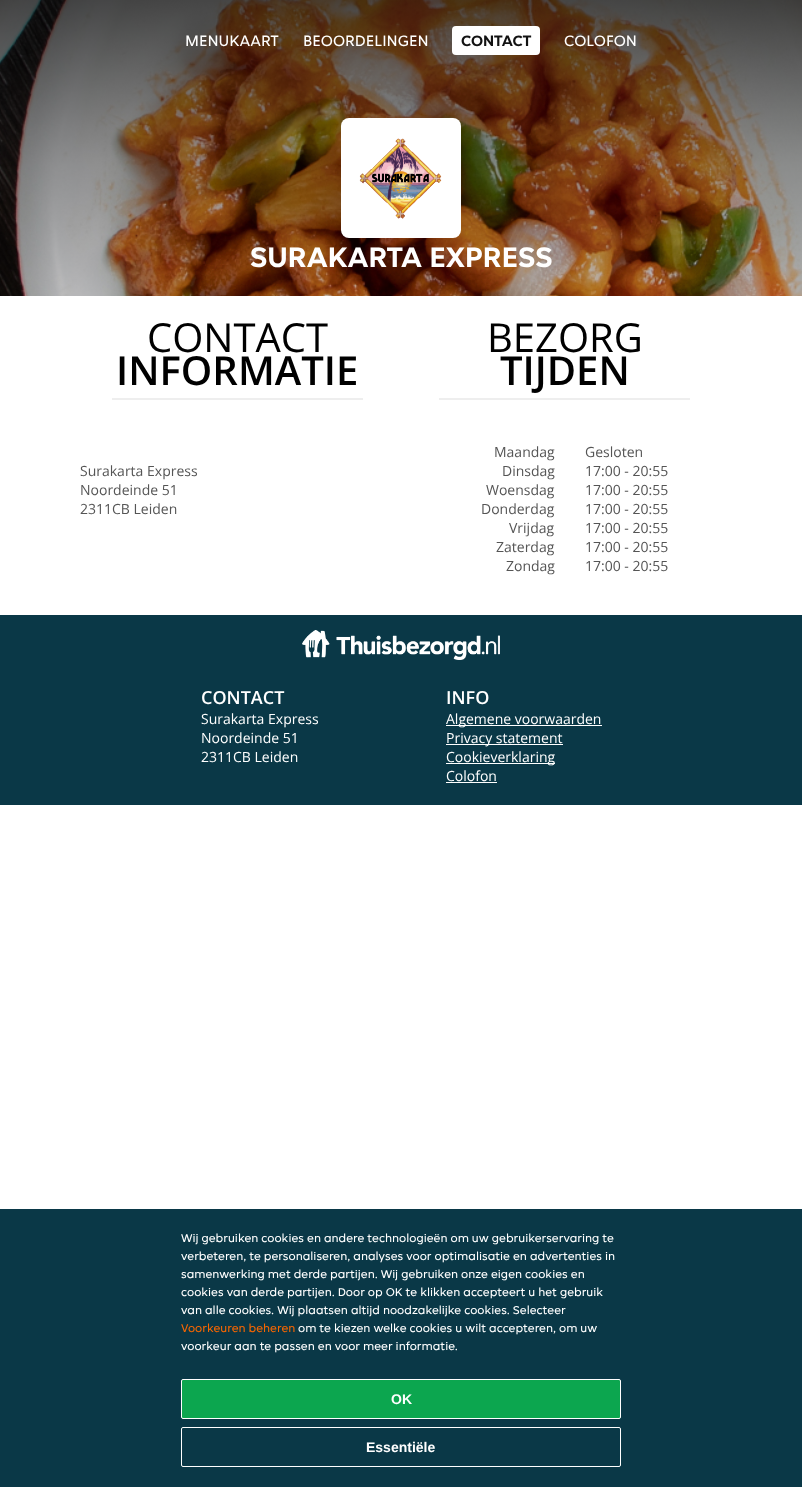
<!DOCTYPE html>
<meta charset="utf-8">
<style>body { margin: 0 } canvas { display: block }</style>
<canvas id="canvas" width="802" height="1487"></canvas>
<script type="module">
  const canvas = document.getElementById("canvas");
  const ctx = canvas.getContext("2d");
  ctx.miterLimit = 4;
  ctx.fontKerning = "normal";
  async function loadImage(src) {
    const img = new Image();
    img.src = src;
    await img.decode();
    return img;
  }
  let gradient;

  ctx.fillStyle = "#ffffff";
  ctx.fillRect(0, 0, 802, 1487);
  ctx.drawImage(await loadImage("img1.png"), 0, 0, 802, 296);
  gradient = ctx.createLinearGradient(401, 0, 401, 500);
  gradient.addColorStop(0, "rgba(0, 0, 0, 0.7)");
  gradient.addColorStop(0.33, "rgba(0, 0, 0, 0.4)");
  gradient.addColorStop(0.67, "rgba(0, 0, 0, 0.2)");
  gradient.addColorStop(1, "rgba(0, 0, 0, 0)");
  ctx.fillStyle = gradient;
  ctx.fillRect(0, 0, 802, 296);
  ctx.font = "16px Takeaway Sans";
  ctx.fillStyle = "#ffffff";
  ctx.fillText("MENUKAART", 185, 46);
  ctx.fillText("BEOORDELINGEN", 303, 46);
  ctx.beginPath();
  ctx.roundRect(452, 26, 88, 29, 4);
  ctx.fill();
  ctx.font = "bold 16px Takeaway Sans";
  ctx.fillStyle = "#121212";
  ctx.fillText("CONTACT", 461, 46);
  ctx.font = "16px Takeaway Sans";
  ctx.fillStyle = "#ffffff";
  ctx.fillText("COLOFON", 564, 46);
  ctx.beginPath();
  ctx.roundRect(341, 118, 120, 120, 8);
  ctx.fill();
  ctx.drawImage(await loadImage("img2.png"), 359, 138, 83, 81);
  ctx.font = "bold 30px Takeaway Sans";
  ctx.fillText("SURAKARTA EXPRESS", 250, 267);
  ctx.font = "40px Open Sans";
  ctx.fillStyle = "#000000";
  ctx.fillText("CONTACT", 147, 352);
  ctx.font = "600 40px Open Sans";
  ctx.fillText("INFORMATIE", 116, 385);
  ctx.fillStyle = "#eeeeee";
  ctx.fillRect(112, 398, 251, 2);
  ctx.font = "14px Open Sans";
  ctx.fillStyle = "#555555";
  ctx.fillText("Surakarta Express", 80, 476);
  ctx.fillText("Noordeinde 51", 80, 495);
  ctx.fillText("2311CB Leiden", 80, 514);
  ctx.font = "40px Open Sans";
  ctx.fillStyle = "#000000";
  ctx.fillText("BEZORG", 487, 352);
  ctx.font = "600 40px Open Sans";
  ctx.fillText("TIJDEN", 500, 385);
  ctx.fillStyle = "#eeeeee";
  ctx.fillRect(439, 398, 251, 2);
  ctx.font = "14px Open Sans";
  ctx.fillStyle = "#555555";
  ctx.fillText("Maandag", 494, 457);
  ctx.fillText("Gesloten", 585, 457);
  ctx.fillText("Dinsdag", 502, 476);
  ctx.fillText("17:00 - 20:55", 585, 476);
  ctx.fillText("Woensdag", 486, 495);
  ctx.fillText("17:00 - 20:55", 585, 495);
  ctx.fillText("Donderdag", 481, 514);
  ctx.fillText("17:00 - 20:55", 585, 514);
  ctx.fillText("Vrijdag", 509, 533);
  ctx.fillText("17:00 - 20:55", 585, 533);
  ctx.fillText("Zaterdag", 496, 552);
  ctx.fillText("17:00 - 20:55", 585, 552);
  ctx.fillText("Zondag", 506, 571);
  ctx.fillText("17:00 - 20:55", 585, 571);
  ctx.fillStyle = "#0a3847";
  ctx.fillRect(0, 615, 802, 190);
  ctx.drawImage(await loadImage("img3.png"), 302, 630, 198, 30);
  ctx.font = "600 18px Open Sans";
  ctx.fillStyle = "#ffffff";
  ctx.fillText("CONTACT", 201, 704);
  ctx.font = "14px Open Sans";
  ctx.fillText("Surakarta Express", 201, 724);
  ctx.fillText("Noordeinde 51", 201, 743);
  ctx.fillText("2311CB Leiden", 201, 762);
  ctx.font = "600 18px Open Sans";
  ctx.fillText("INFO", 446, 704);
  ctx.fillRect(446, 725, 156, 1);
  ctx.font = "14px Open Sans";
  ctx.fillText("Algemene voorwaarden", 446, 724);
  ctx.fillRect(446, 744, 117, 1);
  ctx.fillText("Privacy statement", 446, 743);
  ctx.fillRect(446, 763, 109, 1);
  ctx.fillText("Cookieverklaring", 446, 762);
  ctx.fillText("Colofon", 446, 781);
  ctx.fillRect(446, 782, 51, 1);
  ctx.fillStyle = "#0a3847";
  ctx.fillRect(0, 1209, 802, 278);
  ctx.font = "12px Takeaway Sans";
  ctx.fillStyle = "#ffffff";
  ctx.fillText("Wij gebruiken cookies en andere technologieën om uw gebruikerservaring te", 181, 1242);
  ctx.fillText("verbeteren, te personaliseren, analyses voor optimalisatie en advertenties in", 181, 1260);
  ctx.fillText("samenwerking met derde partijen. Wij gebruiken onze eigen cookies en", 181, 1278);
  ctx.fillText("cookies van derde partijen. Door op OK te klikken accepteert u het gebruik", 181, 1296);
  ctx.fillText("van alle cookies. Wij plaatsen altijd noodzakelijke cookies. Selecteer", 181, 1314);
  ctx.fillStyle = "#f86600";
  ctx.fillText("Voorkeuren beheren", 181, 1332);
  ctx.fillStyle = "#ffffff";
  ctx.fillText("om te kiezen welke cookies u wilt accepteren, om uw", 298, 1332);
  ctx.fillText("voorkeur aan te passen en voor meer informatie.", 181, 1350);
  ctx.fillStyle = "#0ca64f";
  ctx.beginPath();
  ctx.roundRect(181.5, 1379.5, 439, 39, 1.5);
  ctx.fill();
  ctx.strokeStyle = "#ffffff";
  ctx.stroke();
  ctx.font = "bold 14px Liberation Sans";
  ctx.fillStyle = "#ffffff";
  ctx.fillText("OK", 391, 1404);
  ctx.beginPath();
  ctx.roundRect(181.5, 1427.5, 439, 39, 1.5);
  ctx.stroke();
  ctx.fillText("Essentiële", 366, 1452);
</script>
